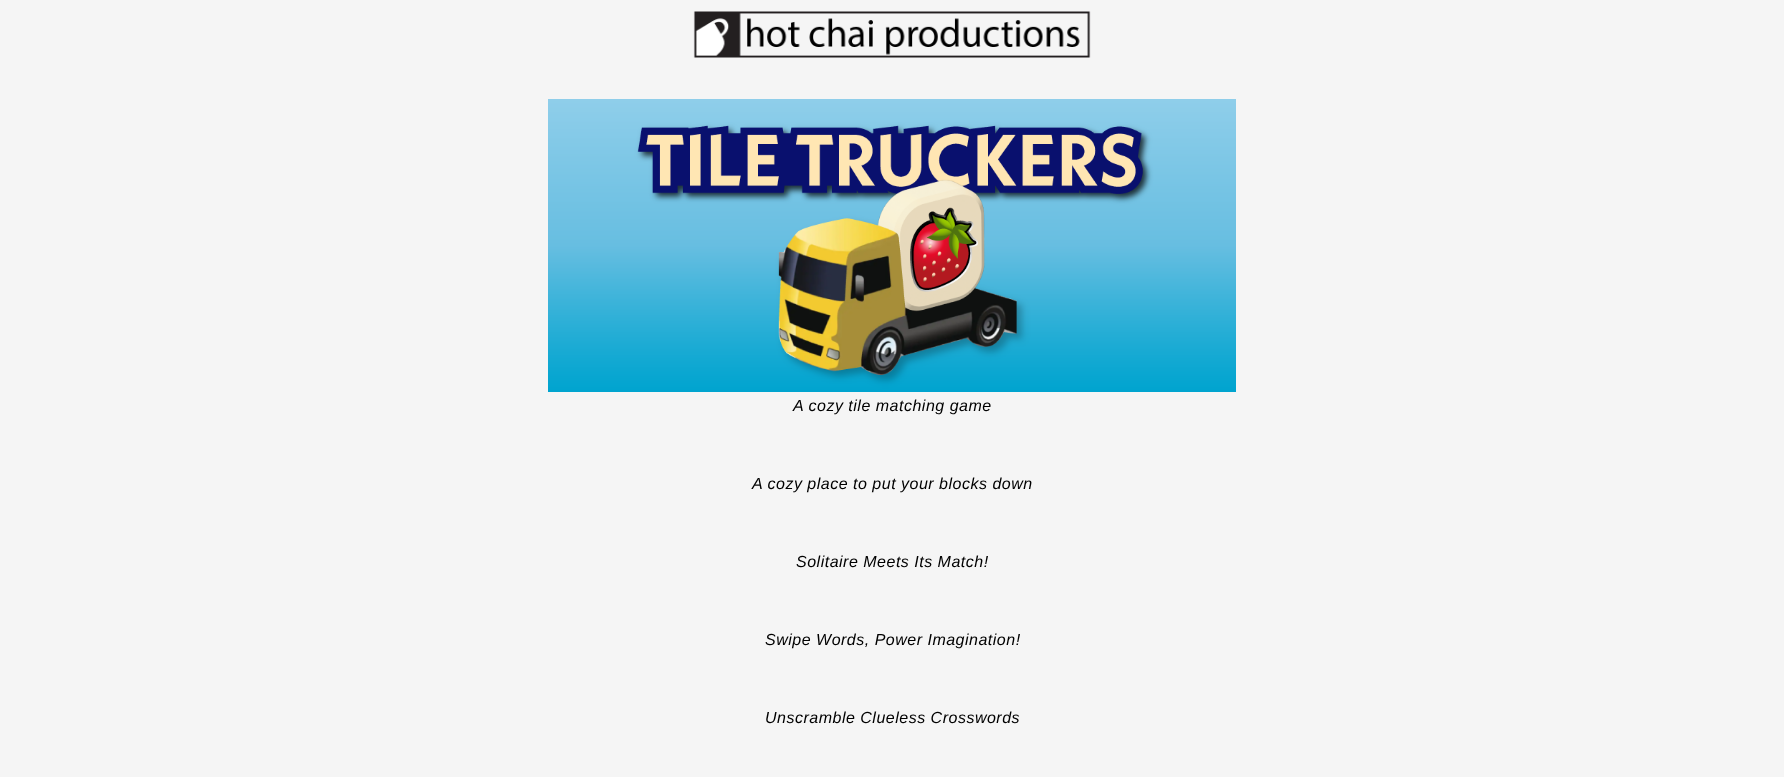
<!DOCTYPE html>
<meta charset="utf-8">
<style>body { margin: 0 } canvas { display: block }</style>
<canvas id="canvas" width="1784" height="777"></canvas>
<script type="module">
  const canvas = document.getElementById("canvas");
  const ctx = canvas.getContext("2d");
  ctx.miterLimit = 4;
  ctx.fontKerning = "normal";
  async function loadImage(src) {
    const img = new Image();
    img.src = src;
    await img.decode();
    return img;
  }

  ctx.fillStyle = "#f5f5f5";
  ctx.fillRect(0, 0, 1784, 777);
  ctx.drawImage(await loadImage("img1.png"), 693, 11, 398, 47);
  ctx.drawImage(await loadImage("img2.png"), 548, 99, 688, 293);
  ctx.letterSpacing = "0.5px";
  ctx.font = "italic 16px Liberation Sans";
  ctx.fillStyle = "#000000";
  ctx.fillText("A cozy tile matching game", 793, 411);
  ctx.fillText("A cozy place to put your blocks down", 752, 489);
  ctx.fillText("Solitaire Meets Its Match!", 796, 567);
  ctx.fillText("Swipe Words, Power Imagination!", 765, 645);
  ctx.fillText("Unscramble Clueless Crosswords", 765, 723);
</script>
